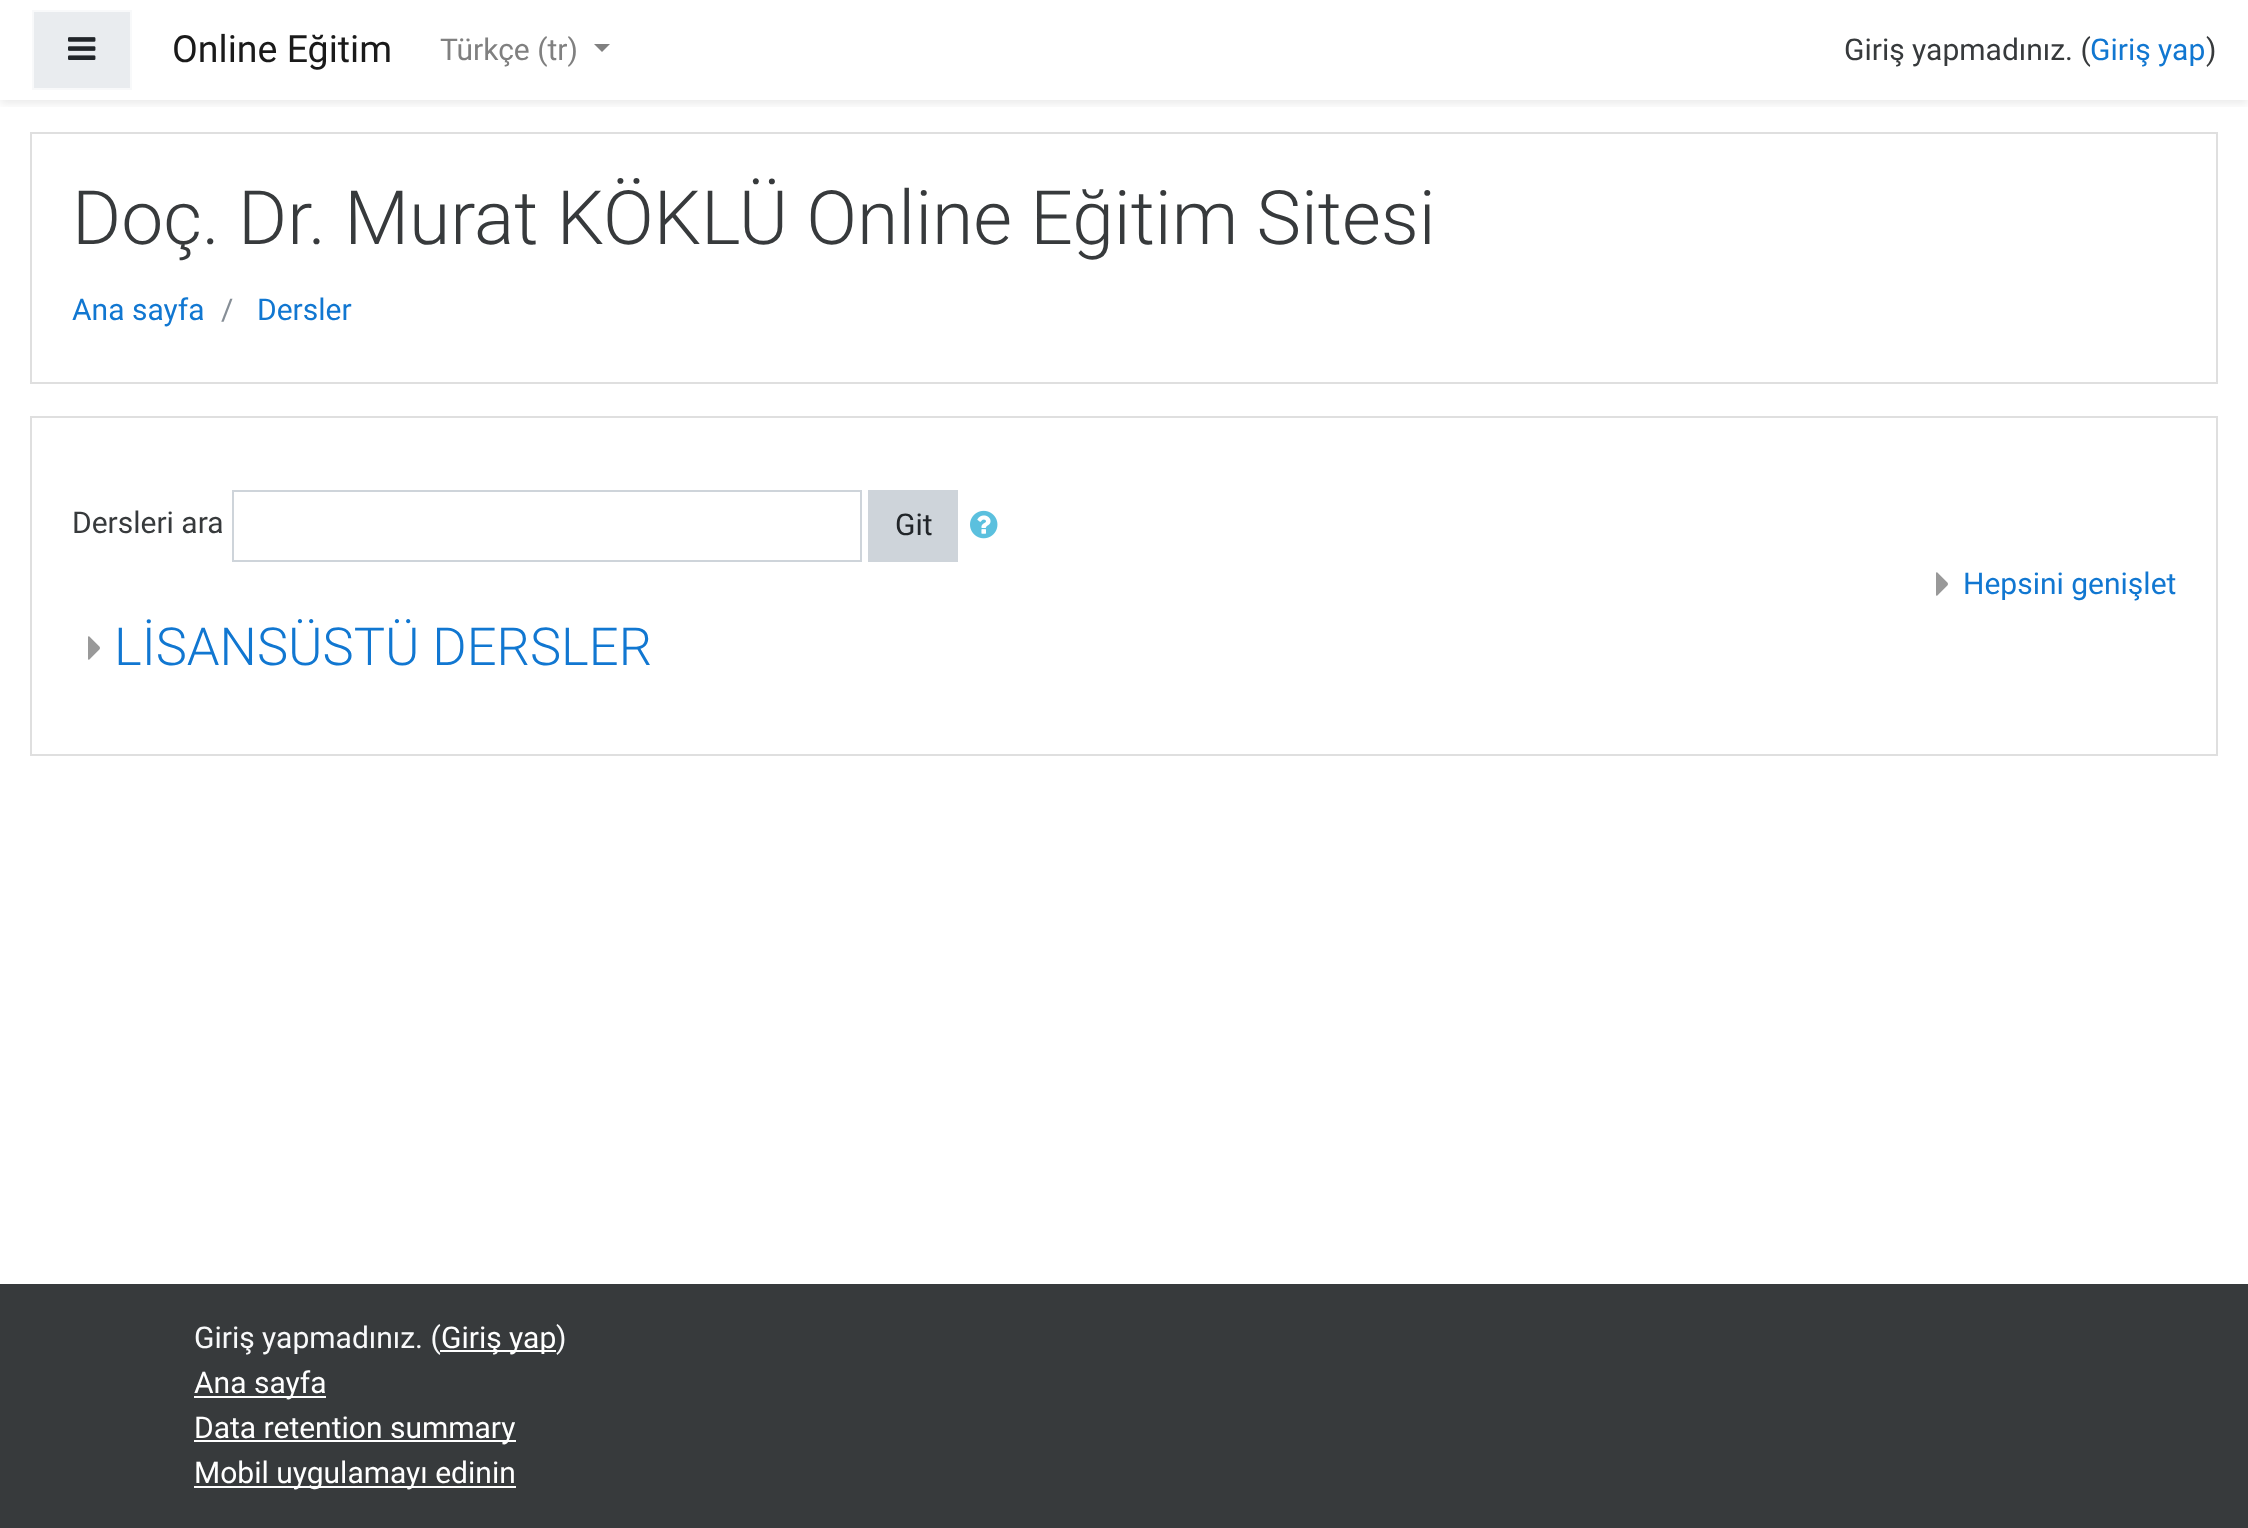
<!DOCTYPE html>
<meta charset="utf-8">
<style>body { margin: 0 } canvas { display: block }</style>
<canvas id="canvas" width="2248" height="1528"></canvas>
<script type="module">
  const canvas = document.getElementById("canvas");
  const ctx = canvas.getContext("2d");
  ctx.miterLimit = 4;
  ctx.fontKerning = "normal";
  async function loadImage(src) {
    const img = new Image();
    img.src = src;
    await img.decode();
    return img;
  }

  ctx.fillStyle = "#ffffff";
  ctx.fillRect(0, 0, 2248, 1528);
  ctx.save();
  ctx.beginPath();
  ctx.rect(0, 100, 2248, 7);
  ctx.clip();
  ctx.fillStyle = "rgba(0, 0, 0, 0.08)";
  ctx.filter = "blur(4px)";
  ctx.beginPath();
  ctx.rect(0, 4, 2248, 100);
  ctx.fill();
  ctx.filter = "none";
  ctx.restore();
  ctx.fillStyle = "#e9ecef";
  ctx.beginPath();
  ctx.rect(33, 11, 98, 78);
  ctx.fill();
  ctx.strokeStyle = "#f8f9fa";
  ctx.lineWidth = 2;
  ctx.stroke();
  ctx.drawImage(await loadImage("img1.png"), 68, 37, 28, 23);
  ctx.font = "37.5px Roboto";
  ctx.fillStyle = "#1a1a1a";
  ctx.fillText("Online Eğitim", 172, 62);
  ctx.font = "30px Roboto";
  ctx.fillStyle = "#808080";
  ctx.fillText("Türkçe (tr)", 440, 60);
  ctx.beginPath();
  ctx.moveTo(594, 44);
  ctx.lineTo(610, 44);
  ctx.lineTo(602, 52);
  ctx.closePath();
  ctx.fill();
  ctx.fillStyle = "#373a3c";
  ctx.fillText("Giriş yapmadınız. (", 1844, 60);
  ctx.fillStyle = "#1177d1";
  ctx.fillText("Giriş yap", 2090, 60);
  ctx.fillStyle = "#373a3c";
  ctx.fillText(")", 2206, 60);
  ctx.strokeStyle = "#dfdfdf";
  ctx.strokeRect(31, 133, 2186, 250);
  ctx.font = "300 75px Roboto";
  ctx.fillText("Doç. Dr. Murat KÖKLÜ Online Eğitim Sitesi", 72, 244);
  ctx.font = "30px Roboto";
  ctx.fillStyle = "#1177d1";
  ctx.fillText("Ana sayfa", 72, 320);
  ctx.fillStyle = "#868e96";
  ctx.fillText("/", 221, 320);
  ctx.fillStyle = "#1177d1";
  ctx.fillText("Dersler", 257, 320);
  ctx.strokeRect(31, 417, 2186, 338);
  ctx.fillStyle = "#373a3c";
  ctx.fillText("Dersleri ara", 72, 533);
  ctx.strokeStyle = "#ced4da";
  ctx.strokeRect(233, 491, 628, 70);
  ctx.fillStyle = "#ced4da";
  ctx.fillRect(868, 490, 90, 72);
  ctx.fillStyle = "#212529";
  ctx.fillText("Git", 895, 535);
  ctx.drawImage(await loadImage("img2.png"), 970, 510, 28, 29);
  ctx.drawImage(await loadImage("img3.png"), 1936, 572, 12, 24);
  ctx.fillStyle = "#1177d1";
  ctx.fillText("Hepsini genişlet", 1963, 594);
  ctx.drawImage(await loadImage("img3.png"), 88, 636, 12, 24);
  ctx.font = "300 52.5px Roboto";
  ctx.fillText("LİSANSÜSTÜ DERSLER", 114, 665);
  ctx.fillStyle = "#373a3c";
  ctx.fillRect(0, 1284, 2248, 244);
  ctx.font = "30px Roboto";
  ctx.fillStyle = "#f8f9fa";
  ctx.fillText("Giriş yapmadınız. (", 194, 1348);
  ctx.fillStyle = "#ffffff";
  ctx.fillRect(440, 1350, 116, 2);
  ctx.fillText("Giriş yap", 441, 1348);
  ctx.fillStyle = "#f8f9fa";
  ctx.fillText(")", 556, 1348);
  ctx.fillStyle = "#ffffff";
  ctx.fillRect(194, 1396, 132, 2);
  ctx.fillText("Ana sayfa", 194, 1393);
  ctx.fillRect(194, 1440, 322, 2);
  ctx.fillText("Data retention summary", 194, 1438);
  ctx.fillRect(194, 1486, 322, 2);
  ctx.fillText("Mobil uygulamayı edinin", 194, 1483);
</script>
